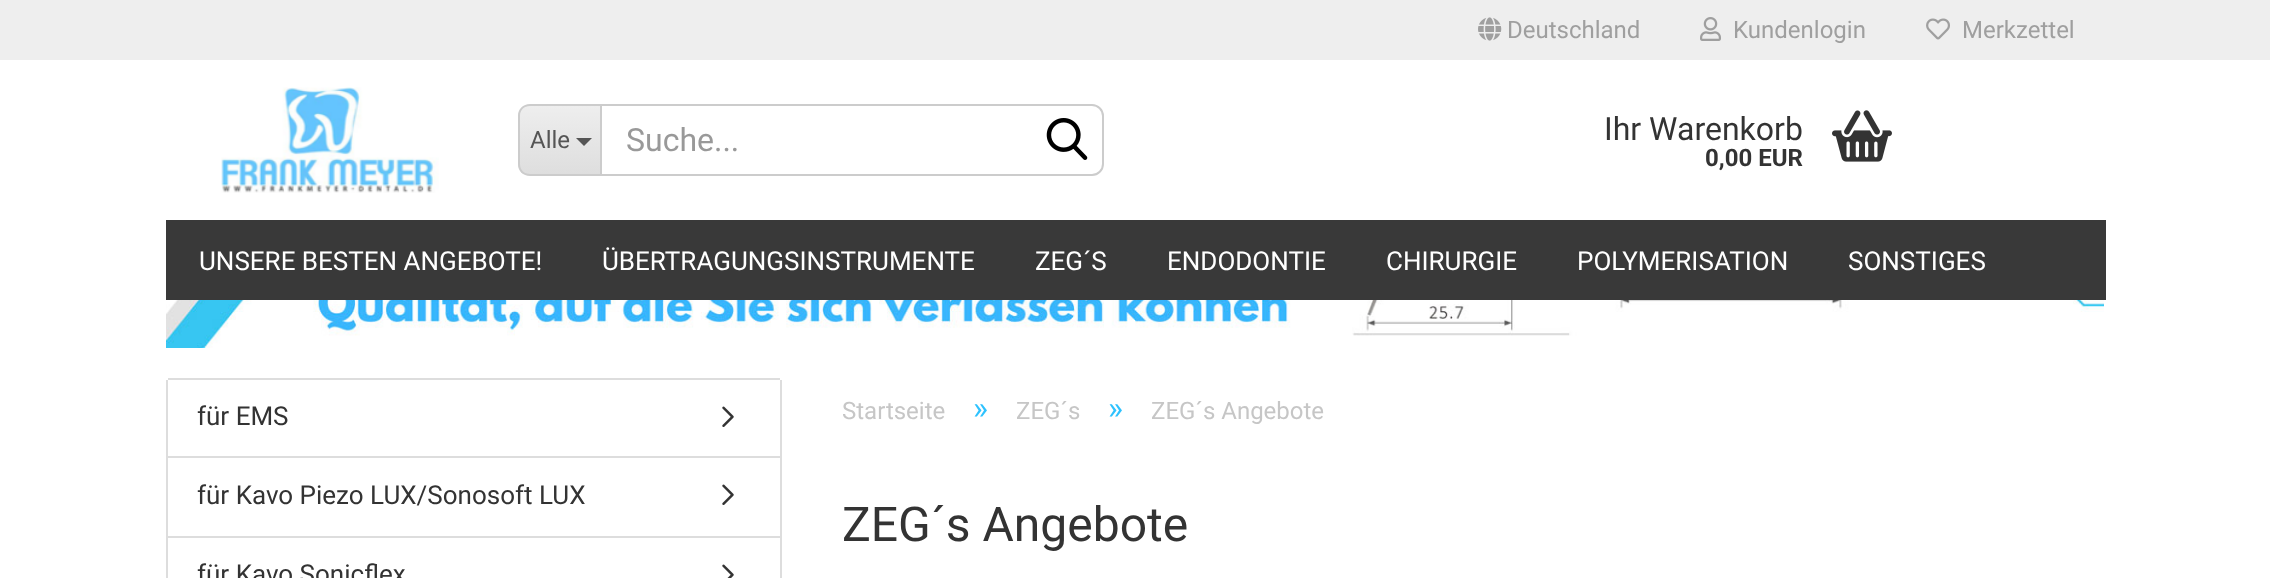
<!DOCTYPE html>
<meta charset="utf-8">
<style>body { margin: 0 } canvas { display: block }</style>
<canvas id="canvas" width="2270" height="578"></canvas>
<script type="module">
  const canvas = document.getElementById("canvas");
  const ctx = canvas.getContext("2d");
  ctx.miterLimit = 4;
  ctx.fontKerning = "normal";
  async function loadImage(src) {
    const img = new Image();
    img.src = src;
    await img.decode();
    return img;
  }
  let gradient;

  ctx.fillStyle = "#ffffff";
  ctx.fillRect(0, 0, 2270, 578);
  ctx.fillStyle = "#eeeeee";
  ctx.fillRect(0, 0, 2270, 60);
  ctx.drawImage(await loadImage("img1.png"), 1478, 17, 24, 24);
  ctx.font = "24px Roboto";
  ctx.fillStyle = "#9f9f9f";
  ctx.fillText("Deutschland", 1507, 38);
  ctx.drawImage(await loadImage("img2.png"), 1700, 17, 21, 24);
  ctx.fillText("Kundenlogin", 1733, 38);
  ctx.drawImage(await loadImage("img3.png"), 1926, 18, 24, 22);
  ctx.fillText("Merkzettel", 1962, 38);
  ctx.drawImage(await loadImage("img4.png"), 221, 87, 218, 106);
  ctx.save();
  ctx.beginPath();
  ctx.roundRect(518, 104, 82, 72, [12, 0, 0, 12]);
  ctx.clip();
  gradient = ctx.createLinearGradient(560, 106, 560, 174);
  gradient.addColorStop(0, "#eeeeee");
  gradient.addColorStop(1, "#dedede");
  ctx.fillStyle = gradient;
  ctx.fillRect(518, 106, 82, 68);
  ctx.restore();
  ctx.fillStyle = "#cccccc";
  ctx.beginPath();
  ctx.moveTo(530, 104);
  ctx.lineTo(600, 104);
  ctx.lineTo(600, 176);
  ctx.lineTo(530, 176);
  ctx.bezierCurveTo(523, 176, 518, 171, 518, 164);
  ctx.lineTo(518, 116);
  ctx.bezierCurveTo(518, 109, 523, 104, 530, 104);
  ctx.closePath();
  ctx.moveTo(530, 106);
  ctx.lineTo(600, 106);
  ctx.lineTo(600, 174);
  ctx.lineTo(530, 174);
  ctx.bezierCurveTo(524, 174, 520, 170, 520, 164);
  ctx.lineTo(520, 116);
  ctx.bezierCurveTo(520, 110, 524, 106, 530, 106);
  ctx.closePath();
  ctx.fill("evenodd");
  ctx.fillStyle = "#555555";
  ctx.fillText("Alle", 530, 148);
  ctx.beginPath();
  ctx.moveTo(576, 138);
  ctx.lineTo(592, 138);
  ctx.lineTo(584, 146);
  ctx.closePath();
  ctx.fill();
  ctx.beginPath();
  ctx.roundRect(601, 105, 502, 70, [0, 11, 11, 0]);
  ctx.strokeStyle = "#cccccc";
  ctx.lineWidth = 2;
  ctx.stroke();
  ctx.font = "32px Roboto";
  ctx.fillStyle = "#999999";
  ctx.fillText("Suche...", 626, 151);
  ctx.drawImage(await loadImage("img5.png"), 1046, 118, 42, 42);
  ctx.fillStyle = "#333333";
  ctx.fillText("Ihr Warenkorb", 1604, 140);
  ctx.font = "bold 24px Roboto";
  ctx.fillText("0,00 EUR", 1705, 166);
  ctx.drawImage(await loadImage("img6.png"), 1832, 110, 60, 52);
  ctx.fillStyle = "#393939";
  ctx.fillRect(166, 220, 1940, 80);
  ctx.font = "26px Roboto";
  ctx.fillStyle = "#ffffff";
  ctx.fillText("UNSERE BESTEN ANGEBOTE!", 199, 270);
  ctx.fillText("ÜBERTRAGUNGSINSTRUMENTE", 602, 270);
  ctx.fillText("ZEG´S", 1035, 270);
  ctx.fillText("ENDODONTIE", 1167, 270);
  ctx.fillText("CHIRURGIE", 1386, 270);
  ctx.fillText("POLYMERISATION", 1577, 270);
  ctx.fillText("SONSTIGES", 1848, 270);
  ctx.drawImage(await loadImage("img7.png"), 166, 300, 1938, 48);
  ctx.fillStyle = "#dddddd";
  ctx.fillRect(168, 378, 612, 2);
  ctx.fillRect(780, 380, 2, 198);
  ctx.fillRect(166, 380, 2, 198);
  ctx.fillRect(168, 456, 612, 2);
  ctx.fillStyle = "#333333";
  ctx.fillText("für EMS", 197, 425);
  ctx.drawImage(await loadImage("img8.png"), 722, 406, 12, 21);
  ctx.fillStyle = "#dddddd";
  ctx.fillRect(168, 536, 612, 2);
  ctx.fillStyle = "#333333";
  ctx.fillText("für Kavo Piezo LUX/Sonosoft LUX", 197, 504);
  ctx.drawImage(await loadImage("img8.png"), 722, 484, 12, 21);
  ctx.fillText("für Kavo Sonicflex", 197, 583);
  ctx.drawImage(await loadImage("img9.png"), 722, 564, 12, 14);
  ctx.font = "24px Roboto";
  ctx.fillStyle = "#c6c6c6";
  ctx.fillText("Startseite", 842, 419);
  ctx.font = "32px Roboto";
  ctx.fillStyle = "#2ec2fe";
  ctx.fillText("»", 973, 419);
  ctx.font = "24px Roboto";
  ctx.fillStyle = "#c6c6c6";
  ctx.fillText("ZEG´s", 1016, 419);
  ctx.font = "32px Roboto";
  ctx.fillStyle = "#2ec2fe";
  ctx.fillText("»", 1108, 419);
  ctx.font = "24px Roboto";
  ctx.fillStyle = "#c6c6c6";
  ctx.fillText("ZEG´s Angebote", 1151, 419);
  ctx.font = "48px Roboto";
  ctx.fillStyle = "#333333";
  ctx.fillText("ZEG´s Angebote", 842, 541);
</script>
